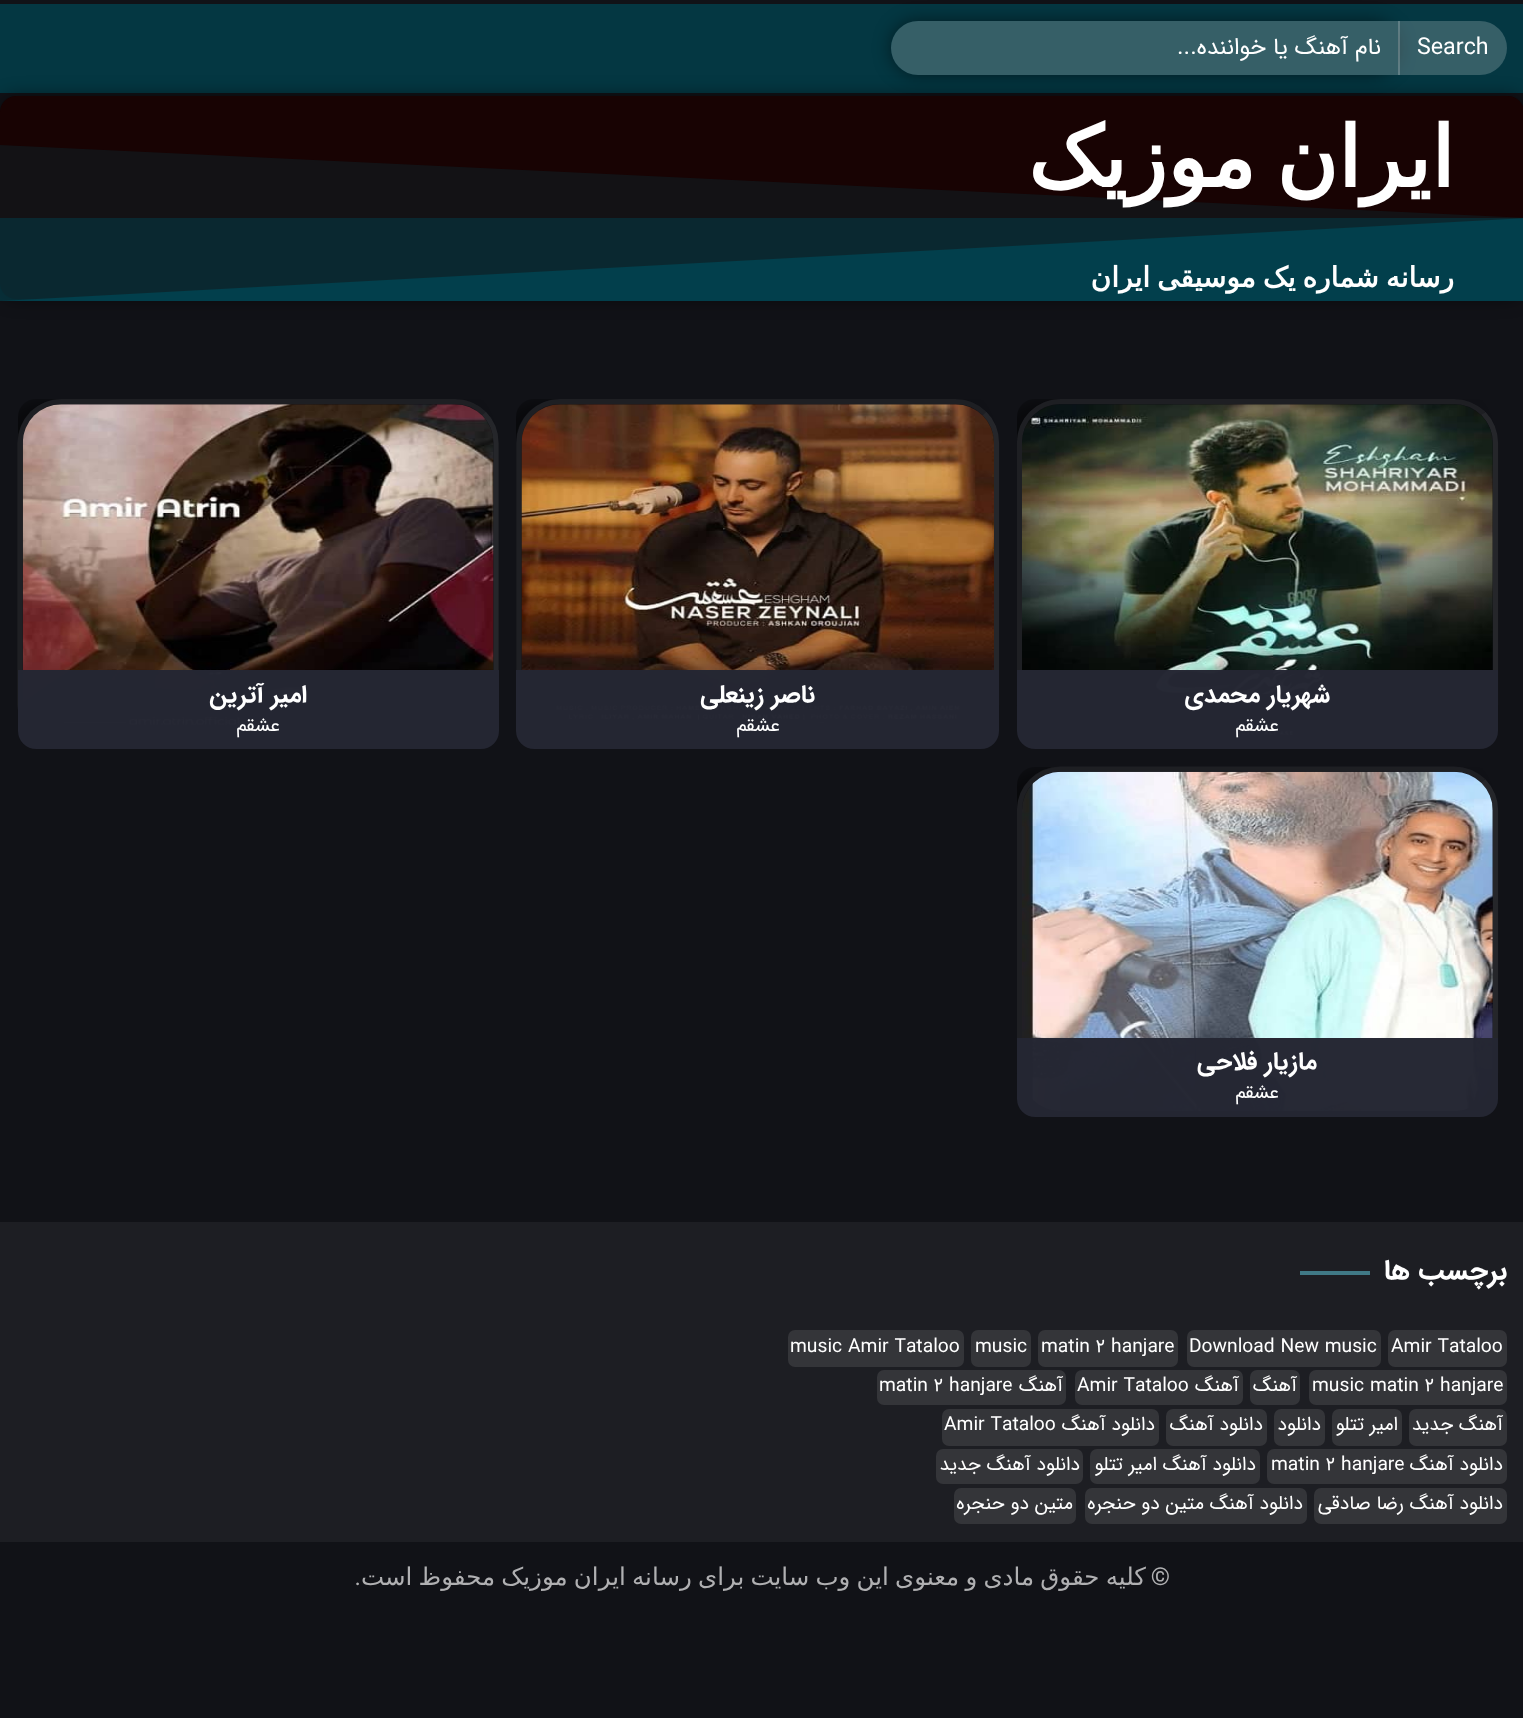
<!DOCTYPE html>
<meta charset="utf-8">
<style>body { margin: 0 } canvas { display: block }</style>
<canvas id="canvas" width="1523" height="1718"></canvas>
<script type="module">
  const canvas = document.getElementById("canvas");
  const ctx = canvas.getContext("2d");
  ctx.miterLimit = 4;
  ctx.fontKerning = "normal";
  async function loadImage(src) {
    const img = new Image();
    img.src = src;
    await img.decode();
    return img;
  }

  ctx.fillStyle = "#111217";
  ctx.fillRect(0, 0, 1523, 1718);
  ctx.fillStyle = "#043742";
  ctx.fillRect(0, 4, 1523, 89);
  ctx.save();
  ctx.beginPath();
  ctx.moveTo(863, 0);
  ctx.lineTo(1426, 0);
  ctx.lineTo(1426, 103);
  ctx.lineTo(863, 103);
  ctx.closePath();
  ctx.moveTo(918, 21);
  ctx.lineTo(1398, 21);
  ctx.lineTo(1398, 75);
  ctx.lineTo(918, 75);
  ctx.bezierCurveTo(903, 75, 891, 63, 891, 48);
  ctx.bezierCurveTo(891, 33, 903, 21, 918, 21);
  ctx.closePath();
  ctx.clip("evenodd");
  ctx.fillStyle = "rgba(0, 0, 0, 0.5)";
  ctx.filter = "blur(9px)";
  ctx.beginPath();
  ctx.roundRect(891, 21, 507, 54, 27);
  ctx.fill();
  ctx.filter = "none";
  ctx.restore();
  ctx.fillStyle = "rgba(255, 255, 255, 0.2)";
  ctx.beginPath();
  ctx.roundRect(1398, 21, 109, 54, [0, 27, 27, 0]);
  ctx.fill();
  ctx.fillStyle = "rgba(255, 255, 255, 0.21)";
  ctx.fillRect(1398, 21, 2, 54);
  ctx.font = "23.25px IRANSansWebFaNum";
  ctx.fillStyle = "#ffffff";
  ctx.fillText("Search", 1417, 54);
  ctx.fillStyle = "rgba(255, 255, 255, 0.2)";
  ctx.beginPath();
  ctx.roundRect(891, 21, 507, 54, [27, 0, 0, 27]);
  ctx.fill();
  ctx.direction = "rtl";
  ctx.fillStyle = "#ffffff";
  ctx.fillText("نام آهنگ یا خواننده...", 1381, 54);
  ctx.fillStyle = "rgba(0, 0, 0, 0.5)";
  ctx.filter = "blur(9px)";
  ctx.beginPath();
  ctx.roundRect(0, 96, 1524, 203, 16);
  ctx.fill();
  ctx.filter = "none";
  ctx.fillStyle = "#180303";
  ctx.beginPath();
  ctx.roundRect(0, 96, 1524, 203, 16);
  ctx.fill();
  ctx.fillStyle = "#023f4c";
  ctx.beginPath();
  ctx.moveTo(0, 301);
  ctx.lineTo(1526, 301);
  ctx.lineTo(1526, 218);
  ctx.closePath();
  ctx.fill();
  ctx.fillStyle = "rgba(2, 63, 76, 0.5)";
  ctx.fillRect(0, 218, 1523, 83);
  ctx.fillStyle = "rgba(2, 63, 76, 0.25)";
  ctx.beginPath();
  ctx.moveTo(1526, 301);
  ctx.lineTo(0, 301);
  ctx.lineTo(0, 145);
  ctx.lineTo(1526, 218);
  ctx.closePath();
  ctx.fill();
  ctx.wordSpacing = "-6px";
  ctx.font = "bold 84px DejaVu Sans";
  ctx.fillStyle = "#ffffff";
  ctx.fillText("ایران موزیک", 1454, 187);
  ctx.wordSpacing = "-2px";
  ctx.font = "bold 28px DejaVu Sans";
  ctx.fillText("رسانه شماره یک موسیقی ایران", 1454, 287);
  ctx.save();
  ctx.beginPath();
  ctx.roundRect(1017, 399, 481, 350, 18);
  ctx.clip();
  ctx.beginPath();
  ctx.moveTo(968, 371);
  ctx.lineTo(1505, 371);
  ctx.lineTo(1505, 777);
  ctx.lineTo(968, 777);
  ctx.closePath();
  ctx.moveTo(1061, 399);
  ctx.lineTo(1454, 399);
  ctx.bezierCurveTo(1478.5, 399, 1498, 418.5, 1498, 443);
  ctx.lineTo(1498, 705);
  ctx.bezierCurveTo(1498, 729.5, 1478.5, 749, 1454, 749);
  ctx.lineTo(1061, 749);
  ctx.bezierCurveTo(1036.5, 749, 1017, 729.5, 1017, 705);
  ctx.lineTo(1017, 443);
  ctx.bezierCurveTo(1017, 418.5, 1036.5, 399, 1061, 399);
  ctx.closePath();
  ctx.clip("evenodd");
  ctx.fillStyle = "rgba(0, 0, 0, 0.5)";
  ctx.filter = "blur(9px)";
  ctx.beginPath();
  ctx.roundRect(996, 399, 481, 350, 44);
  ctx.fill();
  ctx.filter = "none";
  ctx.restore();
  ctx.beginPath();
  ctx.moveTo(1483.5, 413.5);
  ctx.bezierCurveTo(1491, 421.5, 1495.5, 432, 1495.5, 443);
  ctx.lineTo(1495.5, 705);
  ctx.bezierCurveTo(1495.5, 716, 1491, 726.5, 1483.5, 734.5);
  ctx.bezierCurveTo(1475.5, 742, 1465, 746.5, 1454, 746.5);
  ctx.lineTo(1060.5, 746.5);
  ctx.bezierCurveTo(1049.5, 746.5, 1039, 742, 1031.5, 734.5);
  ctx.strokeStyle = "rgba(243, 243, 243, 0.09)";
  ctx.lineWidth = 5.2;
  ctx.stroke();
  ctx.beginPath();
  ctx.moveTo(1031.5, 734.5);
  ctx.bezierCurveTo(1023.5, 726.5, 1019.5, 716, 1019.5, 705);
  ctx.lineTo(1019.5, 443);
  ctx.bezierCurveTo(1019.5, 432, 1023.5, 421.5, 1031.5, 413.5);
  ctx.bezierCurveTo(1039, 406, 1049.5, 401.5, 1060.5, 401.5);
  ctx.lineTo(1454, 401.5);
  ctx.bezierCurveTo(1465, 401.5, 1475.5, 406, 1483.5, 413.5);
  ctx.strokeStyle = "rgba(162, 162, 162, 0.09)";
  ctx.stroke();
  ctx.drawImage(await loadImage("img1.png"), 1022, 404, 471, 340);
  ctx.fillStyle = "rgba(36, 38, 51, 0.99)";
  ctx.beginPath();
  ctx.roundRect(1017, 670, 481, 79, [0, 0, 18, 18]);
  ctx.fill();
  ctx.wordSpacing = "0px";
  ctx.font = "bold 24.5px IRANSansWebFaNum";
  ctx.fillStyle = "#ffffff";
  ctx.fillText("شهریار محمدی", 1330, 702);
  ctx.font = "19.25px IRANSansWebFaNum";
  ctx.fillText("عشقم", 1279, 731);
  ctx.save();
  ctx.beginPath();
  ctx.roundRect(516, 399, 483, 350, 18);
  ctx.clip();
  ctx.beginPath();
  ctx.moveTo(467, 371);
  ctx.lineTo(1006, 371);
  ctx.lineTo(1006, 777);
  ctx.lineTo(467, 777);
  ctx.closePath();
  ctx.moveTo(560, 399);
  ctx.lineTo(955, 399);
  ctx.bezierCurveTo(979.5, 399, 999, 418.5, 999, 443);
  ctx.lineTo(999, 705);
  ctx.bezierCurveTo(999, 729.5, 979.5, 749, 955, 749);
  ctx.lineTo(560, 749);
  ctx.bezierCurveTo(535.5, 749, 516, 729.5, 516, 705);
  ctx.lineTo(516, 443);
  ctx.bezierCurveTo(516, 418.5, 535.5, 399, 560, 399);
  ctx.closePath();
  ctx.clip("evenodd");
  ctx.fillStyle = "rgba(0, 0, 0, 0.5)";
  ctx.filter = "blur(9px)";
  ctx.beginPath();
  ctx.roundRect(495, 399, 483, 350, 44);
  ctx.fill();
  ctx.filter = "none";
  ctx.restore();
  ctx.beginPath();
  ctx.moveTo(984.5, 413.5);
  ctx.bezierCurveTo(992.5, 421.5, 996.5, 432, 996.5, 443);
  ctx.lineTo(996.5, 705);
  ctx.bezierCurveTo(996.5, 716, 992.5, 726.5, 984.5, 734.5);
  ctx.bezierCurveTo(977, 742, 966.5, 746.5, 955.5, 746.5);
  ctx.lineTo(560, 746.5);
  ctx.bezierCurveTo(549, 746.5, 538.5, 742, 531, 734.5);
  ctx.strokeStyle = "rgba(243, 243, 243, 0.09)";
  ctx.stroke();
  ctx.beginPath();
  ctx.moveTo(531, 734.5);
  ctx.bezierCurveTo(523, 726.5, 519, 716, 519, 705);
  ctx.lineTo(519, 443);
  ctx.bezierCurveTo(519, 432, 523, 421.5, 531, 413.5);
  ctx.bezierCurveTo(538.5, 406, 549, 401.5, 560, 401.5);
  ctx.lineTo(955.5, 401.5);
  ctx.bezierCurveTo(966.5, 401.5, 977, 406, 984.5, 413.5);
  ctx.strokeStyle = "rgba(162, 162, 162, 0.09)";
  ctx.stroke();
  ctx.drawImage(await loadImage("img2.png"), 521, 404, 473, 340);
  ctx.fillStyle = "rgba(36, 38, 51, 0.99)";
  ctx.beginPath();
  ctx.roundRect(516, 670, 483, 79, [0, 0, 18, 18]);
  ctx.fill();
  ctx.font = "bold 24.5px IRANSansWebFaNum";
  ctx.fillStyle = "#ffffff";
  ctx.fillText("ناصر زینعلی", 815, 702);
  ctx.font = "19.25px IRANSansWebFaNum";
  ctx.fillText("عشقم", 780, 731);
  ctx.save();
  ctx.beginPath();
  ctx.roundRect(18, 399, 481, 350, 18);
  ctx.clip();
  ctx.beginPath();
  ctx.moveTo(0, 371);
  ctx.lineTo(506, 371);
  ctx.lineTo(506, 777);
  ctx.lineTo(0, 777);
  ctx.closePath();
  ctx.moveTo(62, 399);
  ctx.lineTo(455, 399);
  ctx.bezierCurveTo(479.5, 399, 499, 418.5, 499, 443);
  ctx.lineTo(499, 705);
  ctx.bezierCurveTo(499, 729.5, 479.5, 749, 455, 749);
  ctx.lineTo(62, 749);
  ctx.bezierCurveTo(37.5, 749, 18, 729.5, 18, 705);
  ctx.lineTo(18, 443);
  ctx.bezierCurveTo(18, 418.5, 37.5, 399, 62, 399);
  ctx.closePath();
  ctx.clip("evenodd");
  ctx.fillStyle = "rgba(0, 0, 0, 0.5)";
  ctx.filter = "blur(9px)";
  ctx.beginPath();
  ctx.roundRect(-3, 399, 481, 350, 44);
  ctx.fill();
  ctx.filter = "none";
  ctx.restore();
  ctx.beginPath();
  ctx.moveTo(484, 413.5);
  ctx.bezierCurveTo(492, 421.5, 496, 432, 496, 443);
  ctx.lineTo(496, 705);
  ctx.bezierCurveTo(496, 716, 492, 726.5, 484, 734.5);
  ctx.bezierCurveTo(476.5, 742, 466, 746.5, 455, 746.5);
  ctx.lineTo(61.5, 746.5);
  ctx.bezierCurveTo(50.5, 746.5, 40, 742, 32, 734.5);
  ctx.strokeStyle = "rgba(243, 243, 243, 0.09)";
  ctx.stroke();
  ctx.beginPath();
  ctx.moveTo(32, 734.5);
  ctx.bezierCurveTo(24.5, 726.5, 20, 716, 20, 705);
  ctx.lineTo(20, 443);
  ctx.bezierCurveTo(20, 432, 24.5, 421.5, 32, 413.5);
  ctx.bezierCurveTo(40, 406, 50.5, 401.5, 61, 401.5);
  ctx.lineTo(455, 401.5);
  ctx.bezierCurveTo(466, 401.5, 476.5, 406, 484, 413.5);
  ctx.strokeStyle = "rgba(162, 162, 162, 0.09)";
  ctx.stroke();
  ctx.drawImage(await loadImage("img3.png"), 22, 404, 472, 340);
  ctx.fillStyle = "rgba(36, 38, 51, 0.99)";
  ctx.beginPath();
  ctx.roundRect(18, 670, 481, 79, [0, 0, 18, 18]);
  ctx.fill();
  ctx.font = "bold 24.5px IRANSansWebFaNum";
  ctx.fillStyle = "#ffffff";
  ctx.fillText("امیر آترین", 307, 702);
  ctx.font = "19.25px IRANSansWebFaNum";
  ctx.fillText("عشقم", 280, 731);
  ctx.save();
  ctx.beginPath();
  ctx.roundRect(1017, 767, 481, 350, 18);
  ctx.clip();
  ctx.beginPath();
  ctx.moveTo(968, 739);
  ctx.lineTo(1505, 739);
  ctx.lineTo(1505, 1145);
  ctx.lineTo(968, 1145);
  ctx.closePath();
  ctx.moveTo(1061, 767);
  ctx.lineTo(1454, 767);
  ctx.bezierCurveTo(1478.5, 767, 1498, 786.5, 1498, 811);
  ctx.lineTo(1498, 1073);
  ctx.bezierCurveTo(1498, 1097.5, 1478.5, 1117, 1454, 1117);
  ctx.lineTo(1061, 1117);
  ctx.bezierCurveTo(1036.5, 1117, 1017, 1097.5, 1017, 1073);
  ctx.lineTo(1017, 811);
  ctx.bezierCurveTo(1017, 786.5, 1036.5, 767, 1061, 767);
  ctx.closePath();
  ctx.clip("evenodd");
  ctx.fillStyle = "rgba(0, 0, 0, 0.5)";
  ctx.filter = "blur(9px)";
  ctx.beginPath();
  ctx.roundRect(996, 767, 481, 350, 44);
  ctx.fill();
  ctx.filter = "none";
  ctx.restore();
  ctx.beginPath();
  ctx.moveTo(1483.5, 781);
  ctx.bezierCurveTo(1491, 789, 1495.5, 799.5, 1495.5, 810);
  ctx.lineTo(1495.5, 1073);
  ctx.bezierCurveTo(1495.5, 1083.5, 1491, 1094, 1483.5, 1102);
  ctx.bezierCurveTo(1475.5, 1109.5, 1465, 1114, 1454, 1114);
  ctx.lineTo(1060.5, 1114);
  ctx.bezierCurveTo(1049.5, 1114, 1039, 1109.5, 1031.5, 1102);
  ctx.strokeStyle = "rgba(243, 243, 243, 0.09)";
  ctx.stroke();
  ctx.beginPath();
  ctx.moveTo(1031.5, 1102);
  ctx.bezierCurveTo(1023.5, 1094, 1019.5, 1083.5, 1019.5, 1073);
  ctx.lineTo(1019.5, 810);
  ctx.bezierCurveTo(1019.5, 799.5, 1023.5, 789, 1031.5, 781);
  ctx.bezierCurveTo(1039, 773.5, 1049.5, 769, 1060.5, 769);
  ctx.lineTo(1454, 769);
  ctx.bezierCurveTo(1465, 769, 1475.5, 773.5, 1483.5, 781);
  ctx.strokeStyle = "rgba(162, 162, 162, 0.09)";
  ctx.stroke();
  ctx.drawImage(await loadImage("img4.png"), 1022, 771, 471, 341);
  ctx.fillStyle = "rgba(36, 38, 51, 0.99)";
  ctx.beginPath();
  ctx.roundRect(1017, 1038, 481, 79, [0, 0, 18, 18]);
  ctx.fill();
  ctx.font = "bold 24.5px IRANSansWebFaNum";
  ctx.fillStyle = "#ffffff";
  ctx.fillText("مازیار فلاحی", 1317, 1069);
  ctx.font = "19.25px IRANSansWebFaNum";
  ctx.fillText("عشقم", 1279, 1098);
  ctx.fillStyle = "#1d1e23";
  ctx.fillRect(0, 1222, 1523, 320);
  ctx.font = "bold 28px IRANSansWebFaNum";
  ctx.fillStyle = "#ffffff";
  ctx.fillText("برچسب ها", 1507, 1279);
  ctx.fillStyle = "#407986";
  ctx.fillRect(1300, 1271, 70, 4);
  ctx.fillStyle = "#343539";
  ctx.beginPath();
  ctx.roundRect(1388, 1330, 119, 37, 7);
  ctx.fill();
  ctx.direction = "ltr";
  ctx.font = "19.25px IRANSansWebFaNum";
  ctx.fillStyle = "#ffffff";
  ctx.fillText("Amir Tataloo", 1391, 1352);
  ctx.fillStyle = "#343539";
  ctx.beginPath();
  ctx.roundRect(1187, 1330, 194, 37, 7);
  ctx.fill();
  ctx.fillStyle = "#ffffff";
  ctx.fillText("Download New music", 1189, 1352);
  ctx.fillStyle = "#343539";
  ctx.beginPath();
  ctx.roundRect(1038, 1330, 140, 37, 7);
  ctx.fill();
  ctx.fillStyle = "#ffffff";
  ctx.fillText("matin 2 hanjare", 1041, 1352);
  ctx.fillStyle = "#343539";
  ctx.beginPath();
  ctx.roundRect(971, 1330, 60, 37, 7);
  ctx.fill();
  ctx.fillStyle = "#ffffff";
  ctx.fillText("music", 975, 1352);
  ctx.fillStyle = "#343539";
  ctx.beginPath();
  ctx.roundRect(788, 1330, 176, 37, 7);
  ctx.fill();
  ctx.fillStyle = "#ffffff";
  ctx.fillText("music Amir Tataloo", 790, 1352);
  ctx.fillStyle = "#343539";
  ctx.beginPath();
  ctx.roundRect(1309, 1370, 198, 35, 7);
  ctx.fill();
  ctx.fillStyle = "#ffffff";
  ctx.fillText("music matin 2 hanjare", 1312, 1391);
  ctx.fillStyle = "#343539";
  ctx.beginPath();
  ctx.roundRect(1250, 1370, 50, 35, 7);
  ctx.fill();
  ctx.direction = "rtl";
  ctx.fillStyle = "#ffffff";
  ctx.fillText("آهنگ", 1297, 1391);
  ctx.fillStyle = "#343539";
  ctx.beginPath();
  ctx.roundRect(1075, 1370, 168, 35, 7);
  ctx.fill();
  ctx.fillStyle = "#ffffff";
  ctx.fillText("آهنگ", 1239, 1391);
  ctx.direction = "ltr";
  ctx.fillText("Amir Tataloo", 1077, 1391);
  ctx.fillStyle = "#343539";
  ctx.beginPath();
  ctx.roundRect(877, 1370, 189, 35, 7);
  ctx.fill();
  ctx.direction = "rtl";
  ctx.fillStyle = "#ffffff";
  ctx.fillText("آهنگ", 1063, 1391);
  ctx.direction = "ltr";
  ctx.fillText("matin 2 hanjare", 879, 1391);
  ctx.fillStyle = "#343539";
  ctx.beginPath();
  ctx.roundRect(1409, 1409, 98, 37, 7);
  ctx.fill();
  ctx.direction = "rtl";
  ctx.fillStyle = "#ffffff";
  ctx.fillText("آهنگ جدید", 1503, 1430);
  ctx.fillStyle = "#343539";
  ctx.beginPath();
  ctx.roundRect(1332, 1409, 70, 37, 7);
  ctx.fill();
  ctx.fillStyle = "#ffffff";
  ctx.fillText("امیر تتلو", 1398, 1430);
  ctx.fillStyle = "#343539";
  ctx.beginPath();
  ctx.roundRect(1274, 1409, 51, 37, 7);
  ctx.fill();
  ctx.fillStyle = "#ffffff";
  ctx.fillText("دانلود", 1321, 1430);
  ctx.fillStyle = "#343539";
  ctx.beginPath();
  ctx.roundRect(1166, 1409, 101, 37, 7);
  ctx.fill();
  ctx.fillStyle = "#ffffff";
  ctx.fillText("دانلود آهنگ", 1263, 1430);
  ctx.fillStyle = "#343539";
  ctx.beginPath();
  ctx.roundRect(942, 1409, 217, 37, 7);
  ctx.fill();
  ctx.fillStyle = "#ffffff";
  ctx.fillText("دانلود آهنگ", 1155, 1430);
  ctx.direction = "ltr";
  ctx.fillText("Amir Tataloo", 944, 1430);
  ctx.fillStyle = "#343539";
  ctx.beginPath();
  ctx.roundRect(1267, 1449, 240, 35, 7);
  ctx.fill();
  ctx.direction = "rtl";
  ctx.fillStyle = "#ffffff";
  ctx.fillText("دانلود آهنگ", 1503, 1470);
  ctx.direction = "ltr";
  ctx.fillText("matin 2 hanjare", 1271, 1470);
  ctx.fillStyle = "#343539";
  ctx.beginPath();
  ctx.roundRect(1090, 1449, 170, 35, 7);
  ctx.fill();
  ctx.direction = "rtl";
  ctx.fillStyle = "#ffffff";
  ctx.fillText("دانلود آهنگ امیر تتلو", 1256, 1470);
  ctx.fillStyle = "#343539";
  ctx.beginPath();
  ctx.roundRect(936, 1449, 147, 35, 7);
  ctx.fill();
  ctx.fillStyle = "#ffffff";
  ctx.fillText("دانلود آهنگ جدید", 1080, 1470);
  ctx.fillStyle = "#343539";
  ctx.beginPath();
  ctx.roundRect(1314, 1488, 193, 36, 7);
  ctx.fill();
  ctx.fillStyle = "#ffffff";
  ctx.fillText("دانلود آهنگ رضا صادقی", 1503, 1509);
  ctx.fillStyle = "#343539";
  ctx.beginPath();
  ctx.roundRect(1085, 1488, 222, 36, 7);
  ctx.fill();
  ctx.fillStyle = "#ffffff";
  ctx.fillText("دانلود آهنگ متین دو حنجره", 1303, 1509);
  ctx.fillStyle = "#343539";
  ctx.beginPath();
  ctx.roundRect(954, 1488, 122, 36, 7);
  ctx.fill();
  ctx.fillStyle = "#ffffff";
  ctx.fillText("متین دو حنجره", 1073, 1509);
  ctx.wordSpacing = "-1.6px";
  ctx.font = "24.5px DejaVu Sans";
  ctx.fillStyle = "#b0b0b2";
  ctx.fillText("کلیه حقوق مادی و معنوی این وب سایت برای رسانه ایران موزیک محفوظ است", 1146, 1585);
  ctx.wordSpacing = "0px";
  ctx.font = "24.5px Roboto";
  ctx.fillText("©", 1170, 1585);
  ctx.fillText(".", 361, 1585);
</script>
